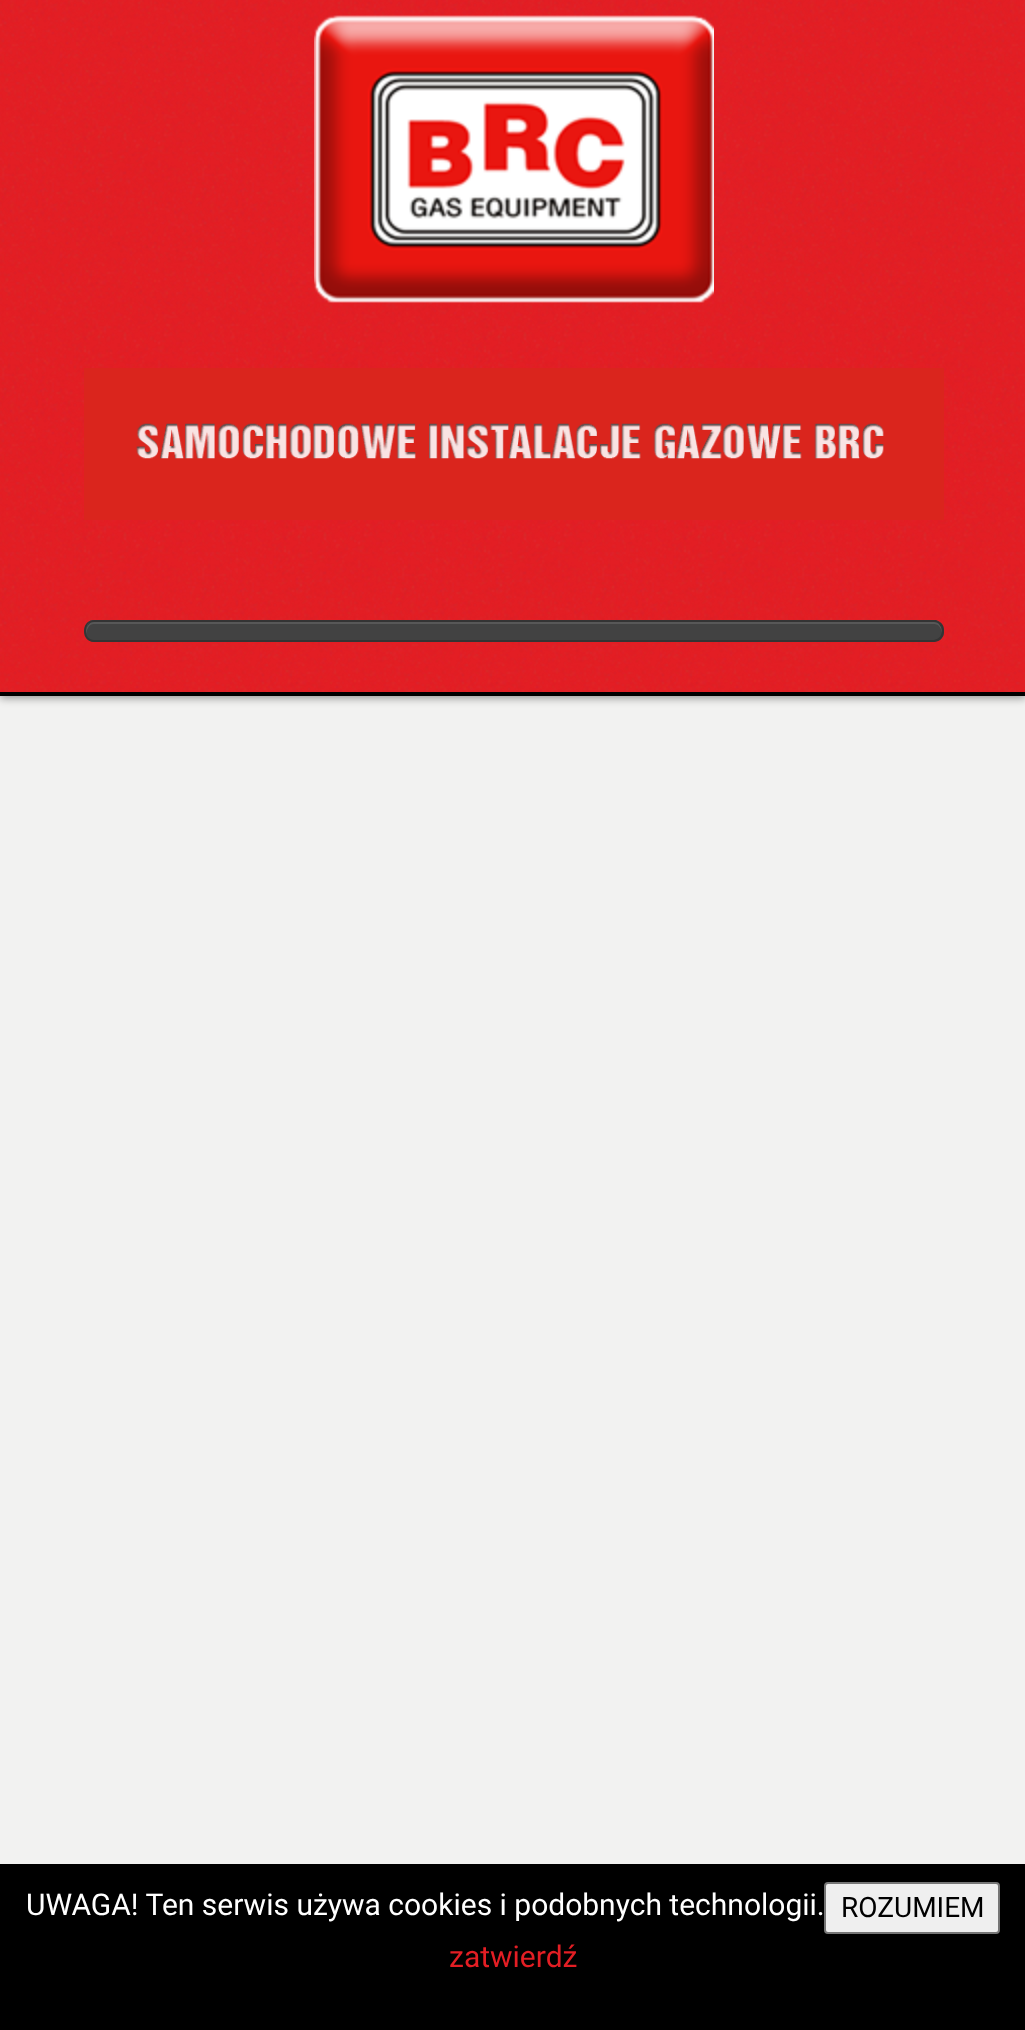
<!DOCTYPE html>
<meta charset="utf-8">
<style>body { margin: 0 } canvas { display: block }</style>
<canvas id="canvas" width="1025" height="2030"></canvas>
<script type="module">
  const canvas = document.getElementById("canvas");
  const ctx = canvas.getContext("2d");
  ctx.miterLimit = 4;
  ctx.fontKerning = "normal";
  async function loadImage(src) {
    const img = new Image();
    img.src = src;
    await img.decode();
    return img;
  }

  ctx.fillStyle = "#f2f2f1";
  ctx.fillRect(0, 0, 1025, 2030);
  ctx.fillStyle = "#000000";
  ctx.fillRect(0, 694, 1025, 2);
  ctx.fillStyle = "rgba(0, 0, 0, 0.4)";
  ctx.filter = "blur(4px)";
  ctx.beginPath();
  ctx.rect(0, 4, 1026, 694);
  ctx.fill();
  ctx.filter = "none";
  ctx.fillStyle = "#e31e24";
  ctx.fillRect(0, 0, 1025, 692);
  ctx.fillStyle = "#000000";
  ctx.fillRect(0, 692, 1025, 2);
  ctx.drawImage(await loadImage("img1.png"), 0, 0, 1025, 692);
  ctx.drawImage(await loadImage("img2.png"), 314, 15, 400, 288);
  ctx.drawImage(await loadImage("img3.png"), 84, 368, 860, 152);
  ctx.fillStyle = "#424242";
  ctx.beginPath();
  ctx.roundRect(84, 620, 860, 22, 10);
  ctx.fill();
  ctx.fillStyle = "#585858";
  ctx.beginPath();
  ctx.moveTo(94, 624);
  ctx.lineTo(934, 624);
  ctx.bezierCurveTo(939, 624, 941, 628, 942, 633);
  ctx.bezierCurveTo(942, 630, 942, 626, 940, 623);
  ctx.bezierCurveTo(938, 621, 936, 620, 934, 620);
  ctx.lineTo(94, 620);
  ctx.bezierCurveTo(87, 620, 85, 628, 86, 634);
  ctx.bezierCurveTo(87, 629, 89, 624, 94, 624);
  ctx.closePath();
  ctx.fill();
  ctx.fillStyle = "#343434";
  ctx.beginPath();
  ctx.moveTo(94, 622);
  ctx.lineTo(934, 622);
  ctx.bezierCurveTo(939, 622, 942, 627, 942, 632);
  ctx.bezierCurveTo(942, 629, 942, 626, 940, 623);
  ctx.bezierCurveTo(939, 622, 937, 621, 936, 620);
  ctx.lineTo(94, 620);
  ctx.bezierCurveTo(88, 620, 86, 628, 86, 633);
  ctx.bezierCurveTo(86, 628, 88, 622, 94, 622);
  ctx.closePath();
  ctx.fill();
  ctx.beginPath();
  ctx.moveTo(94, 620);
  ctx.lineTo(934, 620);
  ctx.bezierCurveTo(937, 620, 940, 622, 942, 624);
  ctx.bezierCurveTo(946, 630, 944, 639, 938, 641);
  ctx.lineTo(934, 642);
  ctx.lineTo(94, 642);
  ctx.bezierCurveTo(81, 642, 81, 620, 94, 620);
  ctx.closePath();
  ctx.moveTo(94, 620);
  ctx.lineTo(934, 620);
  ctx.bezierCurveTo(943, 620, 945, 636, 937, 639);
  ctx.lineTo(934, 640);
  ctx.lineTo(94, 640);
  ctx.bezierCurveTo(89, 640, 86, 636, 86, 632);
  ctx.bezierCurveTo(86, 627, 88, 620, 94, 620);
  ctx.closePath();
  ctx.fill("evenodd");
  ctx.fillStyle = "#000000";
  ctx.fillRect(0, 1864, 1025, 166);
  ctx.font = "30px Roboto";
  ctx.fillStyle = "#ffffff";
  ctx.fillText("UWAGA! Ten serwis używa cookies i podobnych technologii.", 26, 1915);
  ctx.fillStyle = "#efefef";
  ctx.beginPath();
  ctx.roundRect(825, 1883, 174, 50, 3);
  ctx.fill();
  ctx.strokeStyle = "#767676";
  ctx.lineWidth = 2;
  ctx.stroke();
  ctx.font = "28px Roboto";
  ctx.fillStyle = "#000000";
  ctx.fillText("ROZUMIEM", 841, 1917);
  ctx.font = "30px Roboto";
  ctx.fillStyle = "#e31e24";
  ctx.fillText("zatwierdź", 449, 1967);
</script>
